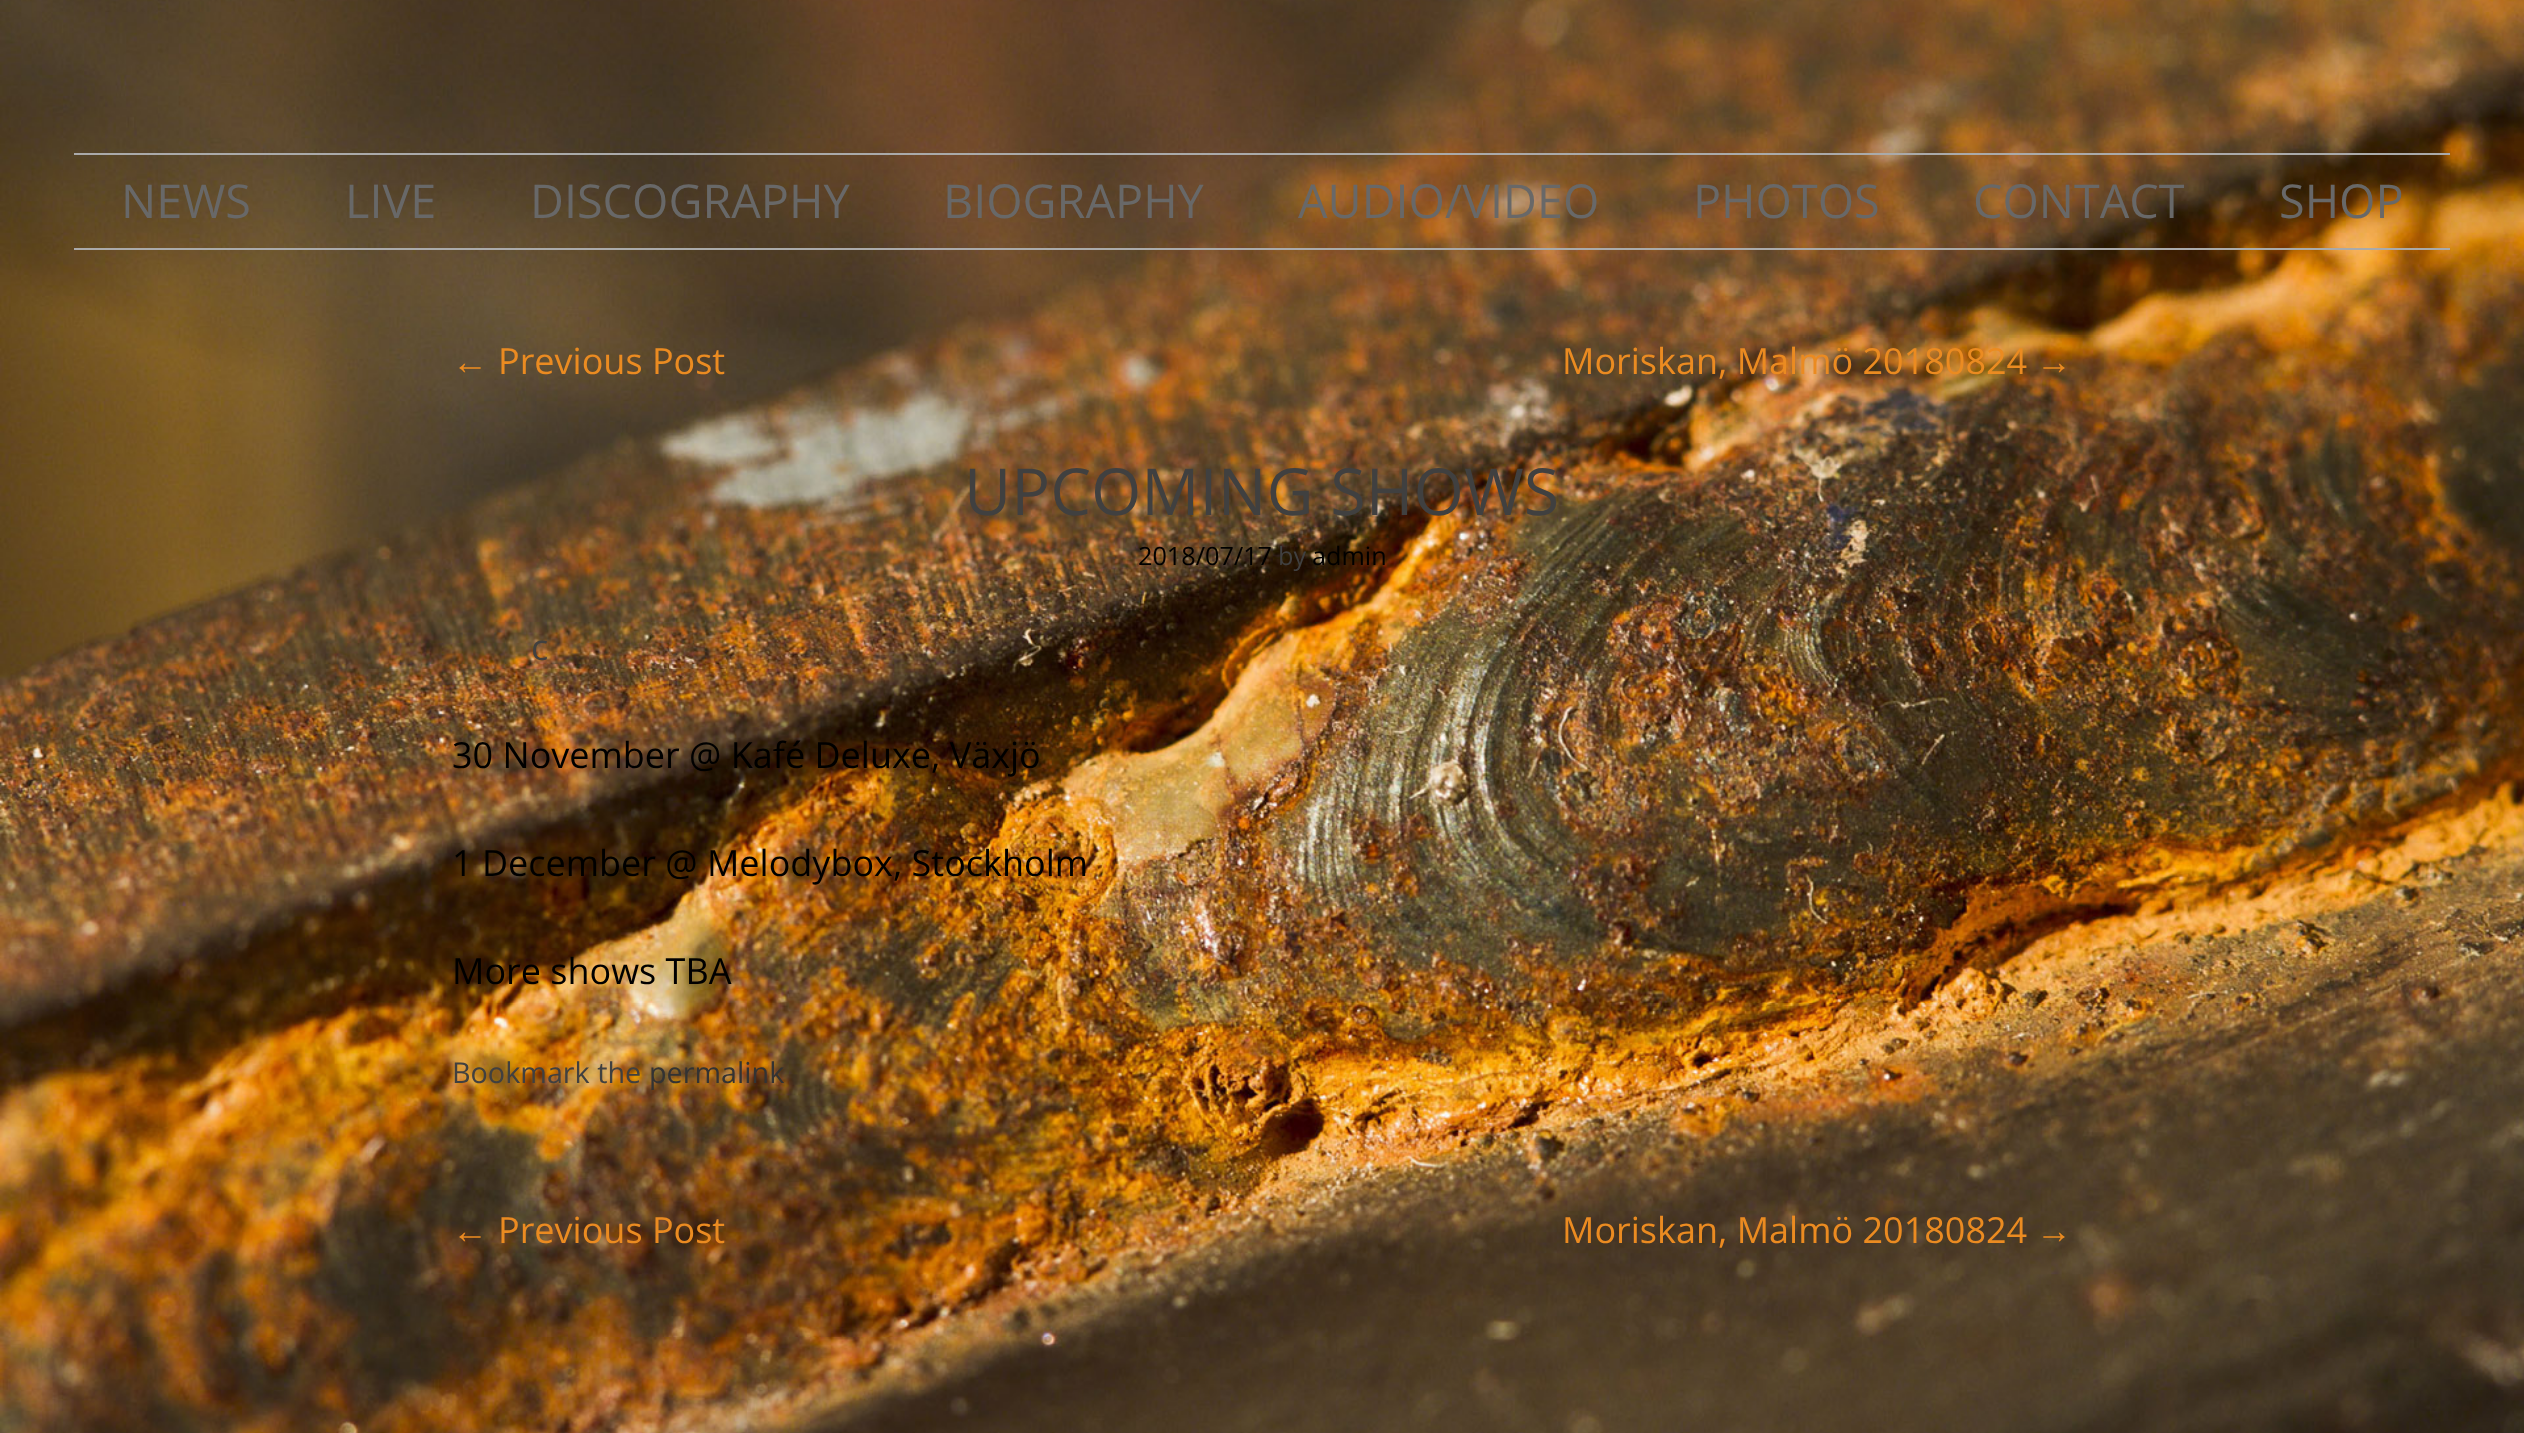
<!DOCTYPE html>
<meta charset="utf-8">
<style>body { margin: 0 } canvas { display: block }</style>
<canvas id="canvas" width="2524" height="1433"></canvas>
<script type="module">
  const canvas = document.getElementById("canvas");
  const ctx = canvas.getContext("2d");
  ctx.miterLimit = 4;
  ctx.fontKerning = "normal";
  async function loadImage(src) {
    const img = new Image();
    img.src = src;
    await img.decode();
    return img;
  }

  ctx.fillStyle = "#ffffff";
  ctx.fillRect(0, 0, 2524, 1433);
  ctx.drawImage(await loadImage("img1.png"), 0, 0, 2524, 1433);
  ctx.fillStyle = "#aaaaaa";
  ctx.fillRect(74, 153, 2376, 2);
  ctx.fillRect(74, 248, 2376, 2);
  ctx.font = "46.75px Open Sans";
  ctx.fillStyle = "#686868";
  ctx.fillText("NEWS", 121, 218);
  ctx.fillText("LIVE", 345, 218);
  ctx.fillText("DISCOGRAPHY", 530, 218);
  ctx.fillText("BIOGRAPHY", 943, 218);
  ctx.fillText("AUDIO/VIDEO", 1298, 218);
  ctx.fillText("PHOTOS", 1693, 218);
  ctx.fillText("CONTACT", 1973, 218);
  ctx.fillText("SHOP", 2279, 218);
  ctx.font = "36px Liberation Sans";
  ctx.fillStyle = "#eb8b21";
  ctx.fillText("←", 452, 374);
  ctx.font = "36px Open Sans";
  ctx.fillText("Previous Post", 498, 374);
  ctx.fillText("Moriskan, Malmö 20180824", 1562, 374);
  ctx.font = "36px Liberation Sans";
  ctx.fillText("→", 2036, 374);
  ctx.font = "64.75px Open Sans";
  ctx.fillStyle = "#404040";
  ctx.fillText("UPCOMING SHOWS", 964, 515);
  ctx.font = "25.25px Open Sans";
  ctx.fillStyle = "#000000";
  ctx.fillText("2018/07/17", 1138, 565);
  ctx.fillStyle = "#404040";
  ctx.fillText("by", 1278, 565);
  ctx.fillStyle = "#000000";
  ctx.fillText("admin", 1312, 565);
  ctx.font = "36px Open Sans";
  ctx.fillStyle = "#404040";
  ctx.fillText("c", 531, 660);
  ctx.fillStyle = "#000000";
  ctx.fillText("30 November @ Kafé Deluxe, Växjö", 452, 768);
  ctx.fillText("1 December @ Melodybox, Stockholm", 452, 876);
  ctx.fillText("More shows TBA", 452, 984);
  ctx.font = "28.75px Open Sans";
  ctx.fillStyle = "#404040";
  ctx.fillText("Bookmark the", 452, 1083);
  ctx.fillStyle = "#333333";
  ctx.fillText("permalink", 649, 1083);
  ctx.font = "36px Liberation Sans";
  ctx.fillStyle = "#eb8b21";
  ctx.fillText("←", 452, 1243);
  ctx.font = "36px Open Sans";
  ctx.fillText("Previous Post", 498, 1243);
  ctx.fillText("Moriskan, Malmö 20180824", 1562, 1243);
  ctx.font = "36px Liberation Sans";
  ctx.fillText("→", 2036, 1243);
</script>
